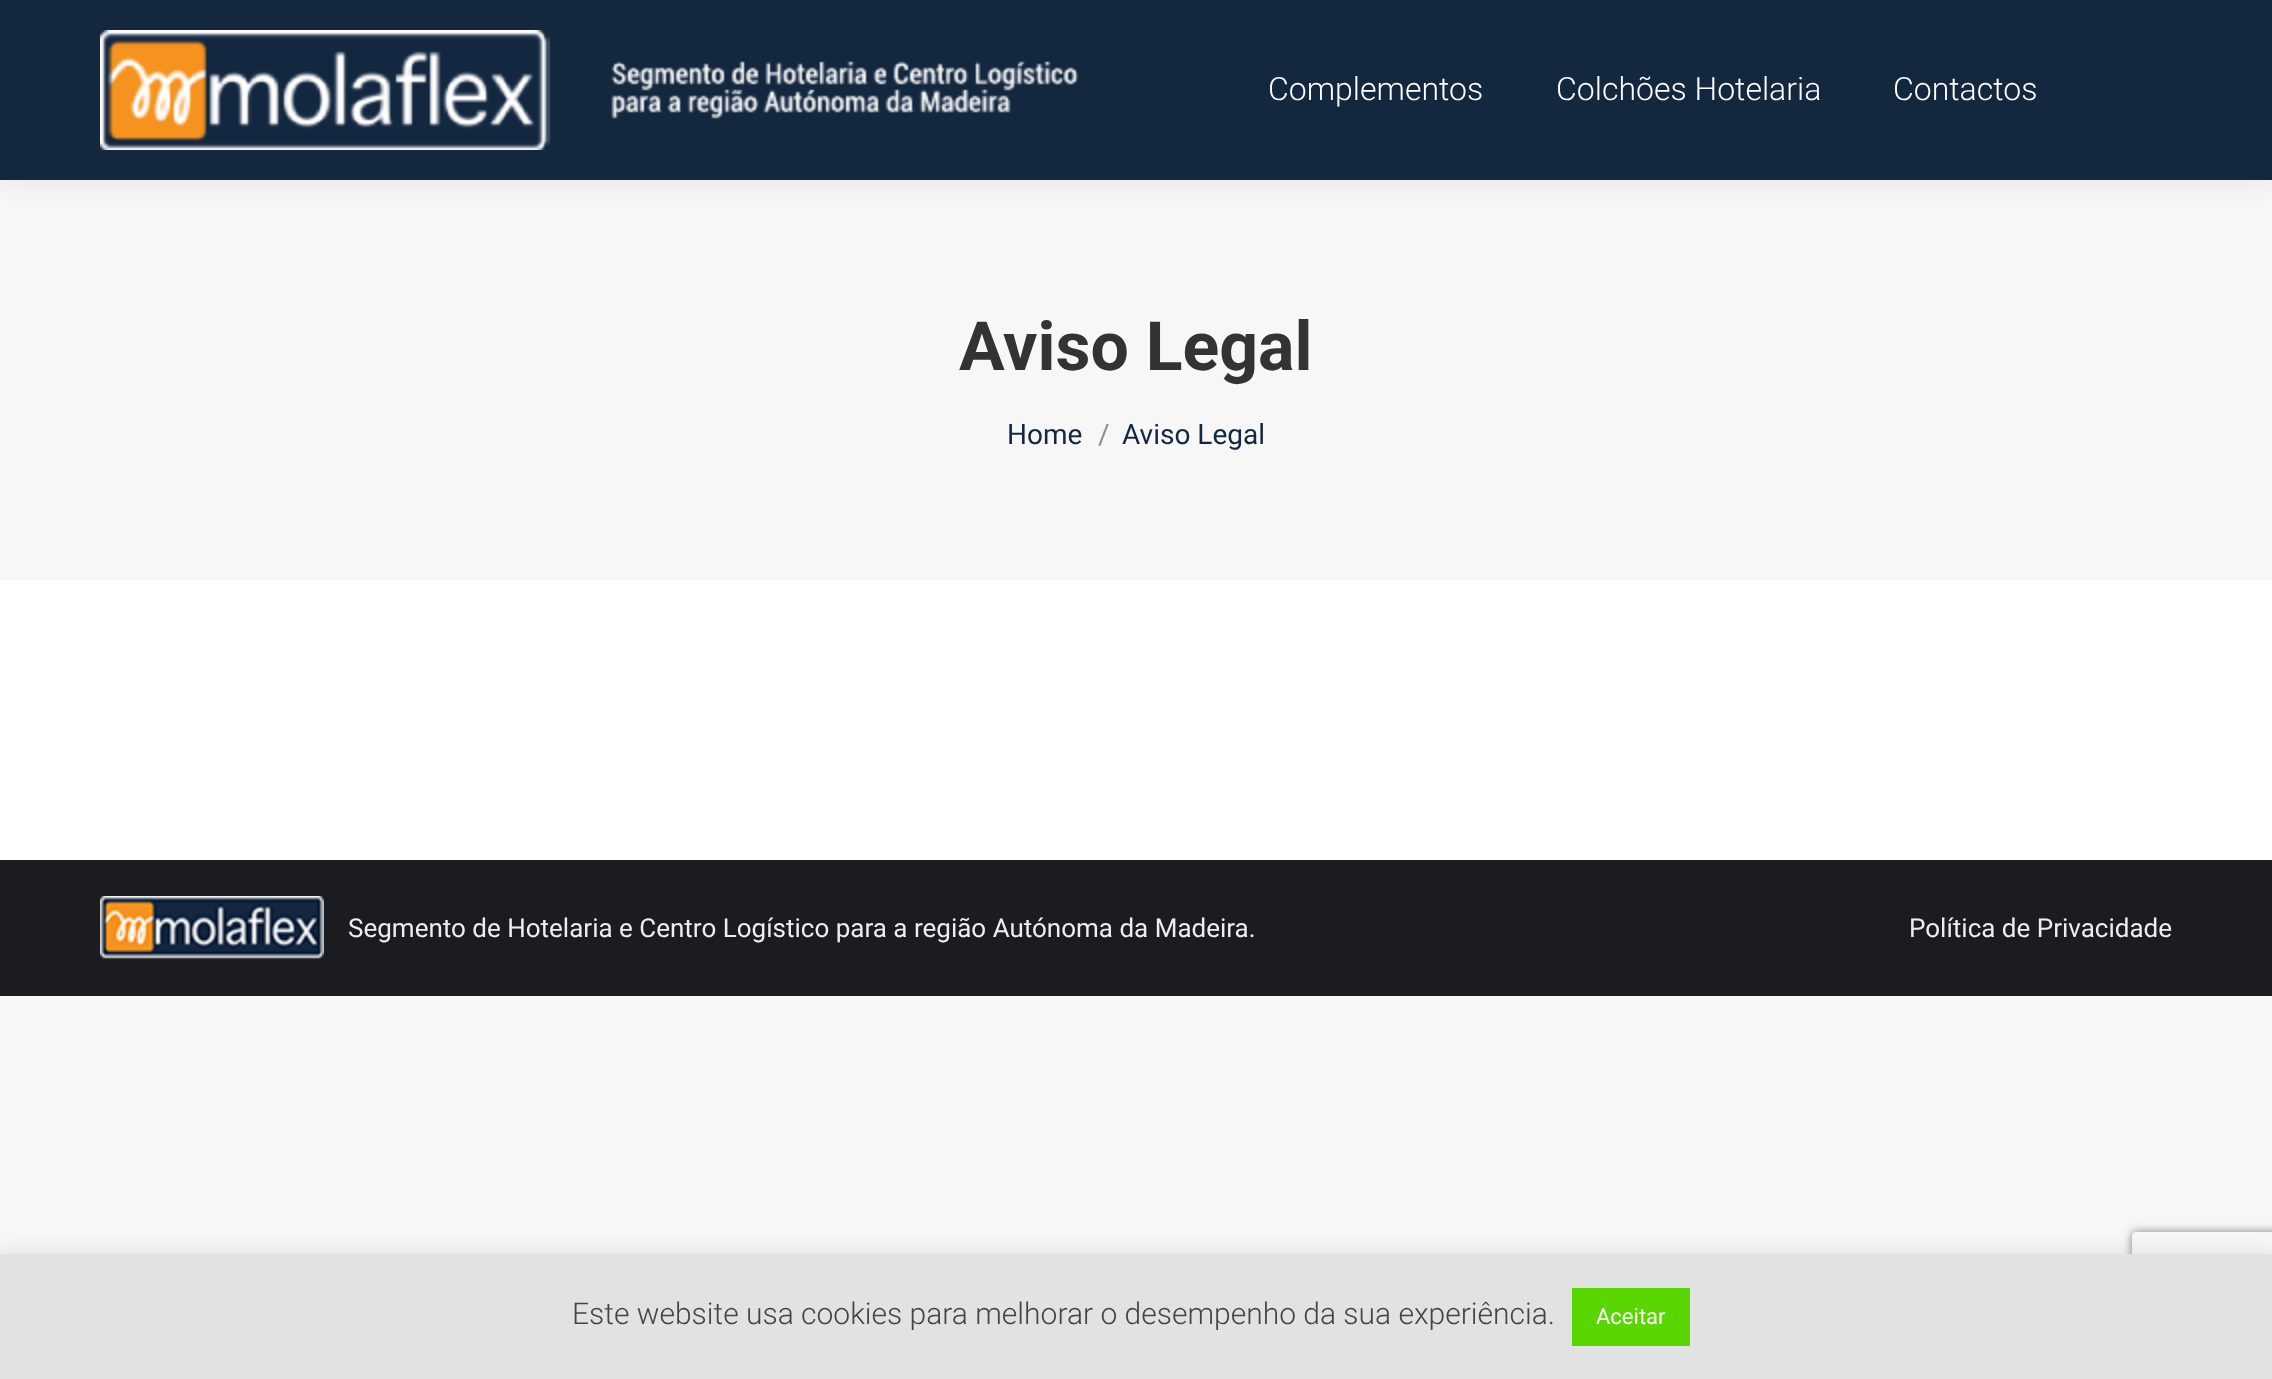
<!DOCTYPE html>
<meta charset="utf-8">
<style>body { margin: 0 } canvas { display: block }</style>
<canvas id="canvas" width="2272" height="1379"></canvas>
<script type="module">
  const canvas = document.getElementById("canvas");
  const ctx = canvas.getContext("2d");
  ctx.miterLimit = 4;
  ctx.fontKerning = "normal";
  async function loadImage(src) {
    const img = new Image();
    img.src = src;
    await img.decode();
    return img;
  }

  ctx.fillStyle = "#f7f7f7";
  ctx.fillRect(0, 0, 2272, 1379);
  ctx.fillStyle = "#ffffff";
  ctx.fillRect(0, 580, 2272, 280);
  ctx.fillStyle = "rgba(0, 0, 0, 0.07)";
  ctx.filter = "blur(15px)";
  ctx.beginPath();
  ctx.rect(-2, -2, 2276, 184);
  ctx.fill();
  ctx.filter = "none";
  ctx.fillStyle = "#13273f";
  ctx.fillRect(0, 0, 2272, 180);
  ctx.drawImage(await loadImage("img1.png"), 100, 30, 979, 120);
  ctx.font = "300 32px Roboto";
  ctx.fillStyle = "#ffffff";
  ctx.fillText("Complementos", 1268, 100);
  ctx.fillText("Colchões Hotelaria", 1556, 100);
  ctx.fillText("Contactos", 1893, 100);
  ctx.font = "bold 68px Roboto";
  ctx.fillStyle = "#333333";
  ctx.fillText("Aviso Legal", 959, 370);
  ctx.font = "28px Roboto";
  ctx.fillStyle = "#13273f";
  ctx.fillText("Home", 1007, 444);
  ctx.fillStyle = "#858f9b";
  ctx.fillText("/", 1098, 444);
  ctx.fillStyle = "#13273f";
  ctx.fillText("Aviso Legal", 1122, 444);
  ctx.fillStyle = "#1a1c20";
  ctx.fillRect(0, 860, 2272, 136);
  ctx.drawImage(await loadImage("img2.png"), 100, 896, 224, 64);
  ctx.font = "26px Roboto";
  ctx.fillStyle = "#eeeeee";
  ctx.fillText("Segmento de Hotelaria e Centro Logístico para a região Autónoma da Madeira.", 348, 937);
  ctx.fillText("Política de Privacidade", 1909, 937);
  ctx.fillStyle = "rgba(172, 171, 171, 0.3)";
  ctx.filter = "blur(10px)";
  ctx.beginPath();
  ctx.rect(0, 1252, 2272, 126);
  ctx.fill();
  ctx.filter = "none";
  ctx.save();
  ctx.beginPath();
  ctx.moveTo(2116, 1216);
  ctx.lineTo(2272, 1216);
  ctx.lineTo(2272, 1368);
  ctx.lineTo(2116, 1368);
  ctx.closePath();
  ctx.moveTo(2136, 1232);
  ctx.lineTo(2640, 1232);
  ctx.bezierCurveTo(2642, 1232, 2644, 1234, 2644, 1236);
  ctx.lineTo(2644, 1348);
  ctx.bezierCurveTo(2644, 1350, 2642, 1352, 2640, 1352);
  ctx.lineTo(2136, 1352);
  ctx.bezierCurveTo(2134, 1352, 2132, 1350, 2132, 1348);
  ctx.lineTo(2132, 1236);
  ctx.bezierCurveTo(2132, 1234, 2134, 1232, 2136, 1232);
  ctx.closePath();
  ctx.clip("evenodd");
  ctx.fillStyle = "#808080";
  ctx.filter = "blur(5px)";
  ctx.beginPath();
  ctx.roundRect(2132, 1232, 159, 120, 4);
  ctx.fill();
  ctx.filter = "none";
  ctx.restore();
  ctx.fillStyle = "#e2e2e2";
  ctx.fillRect(0, 1254, 2272, 125);
  ctx.font = "300 30px Roboto";
  ctx.fillStyle = "#444444";
  ctx.fillText("Este website usa cookies para melhorar o desempenho da sua experiência.", 572, 1324);
  ctx.fillStyle = "#59d600";
  ctx.fillRect(1572, 1288, 118, 58);
  ctx.font = "22px Roboto";
  ctx.fillStyle = "#ffffff";
  ctx.fillText("Aceitar", 1596, 1324);
</script>
